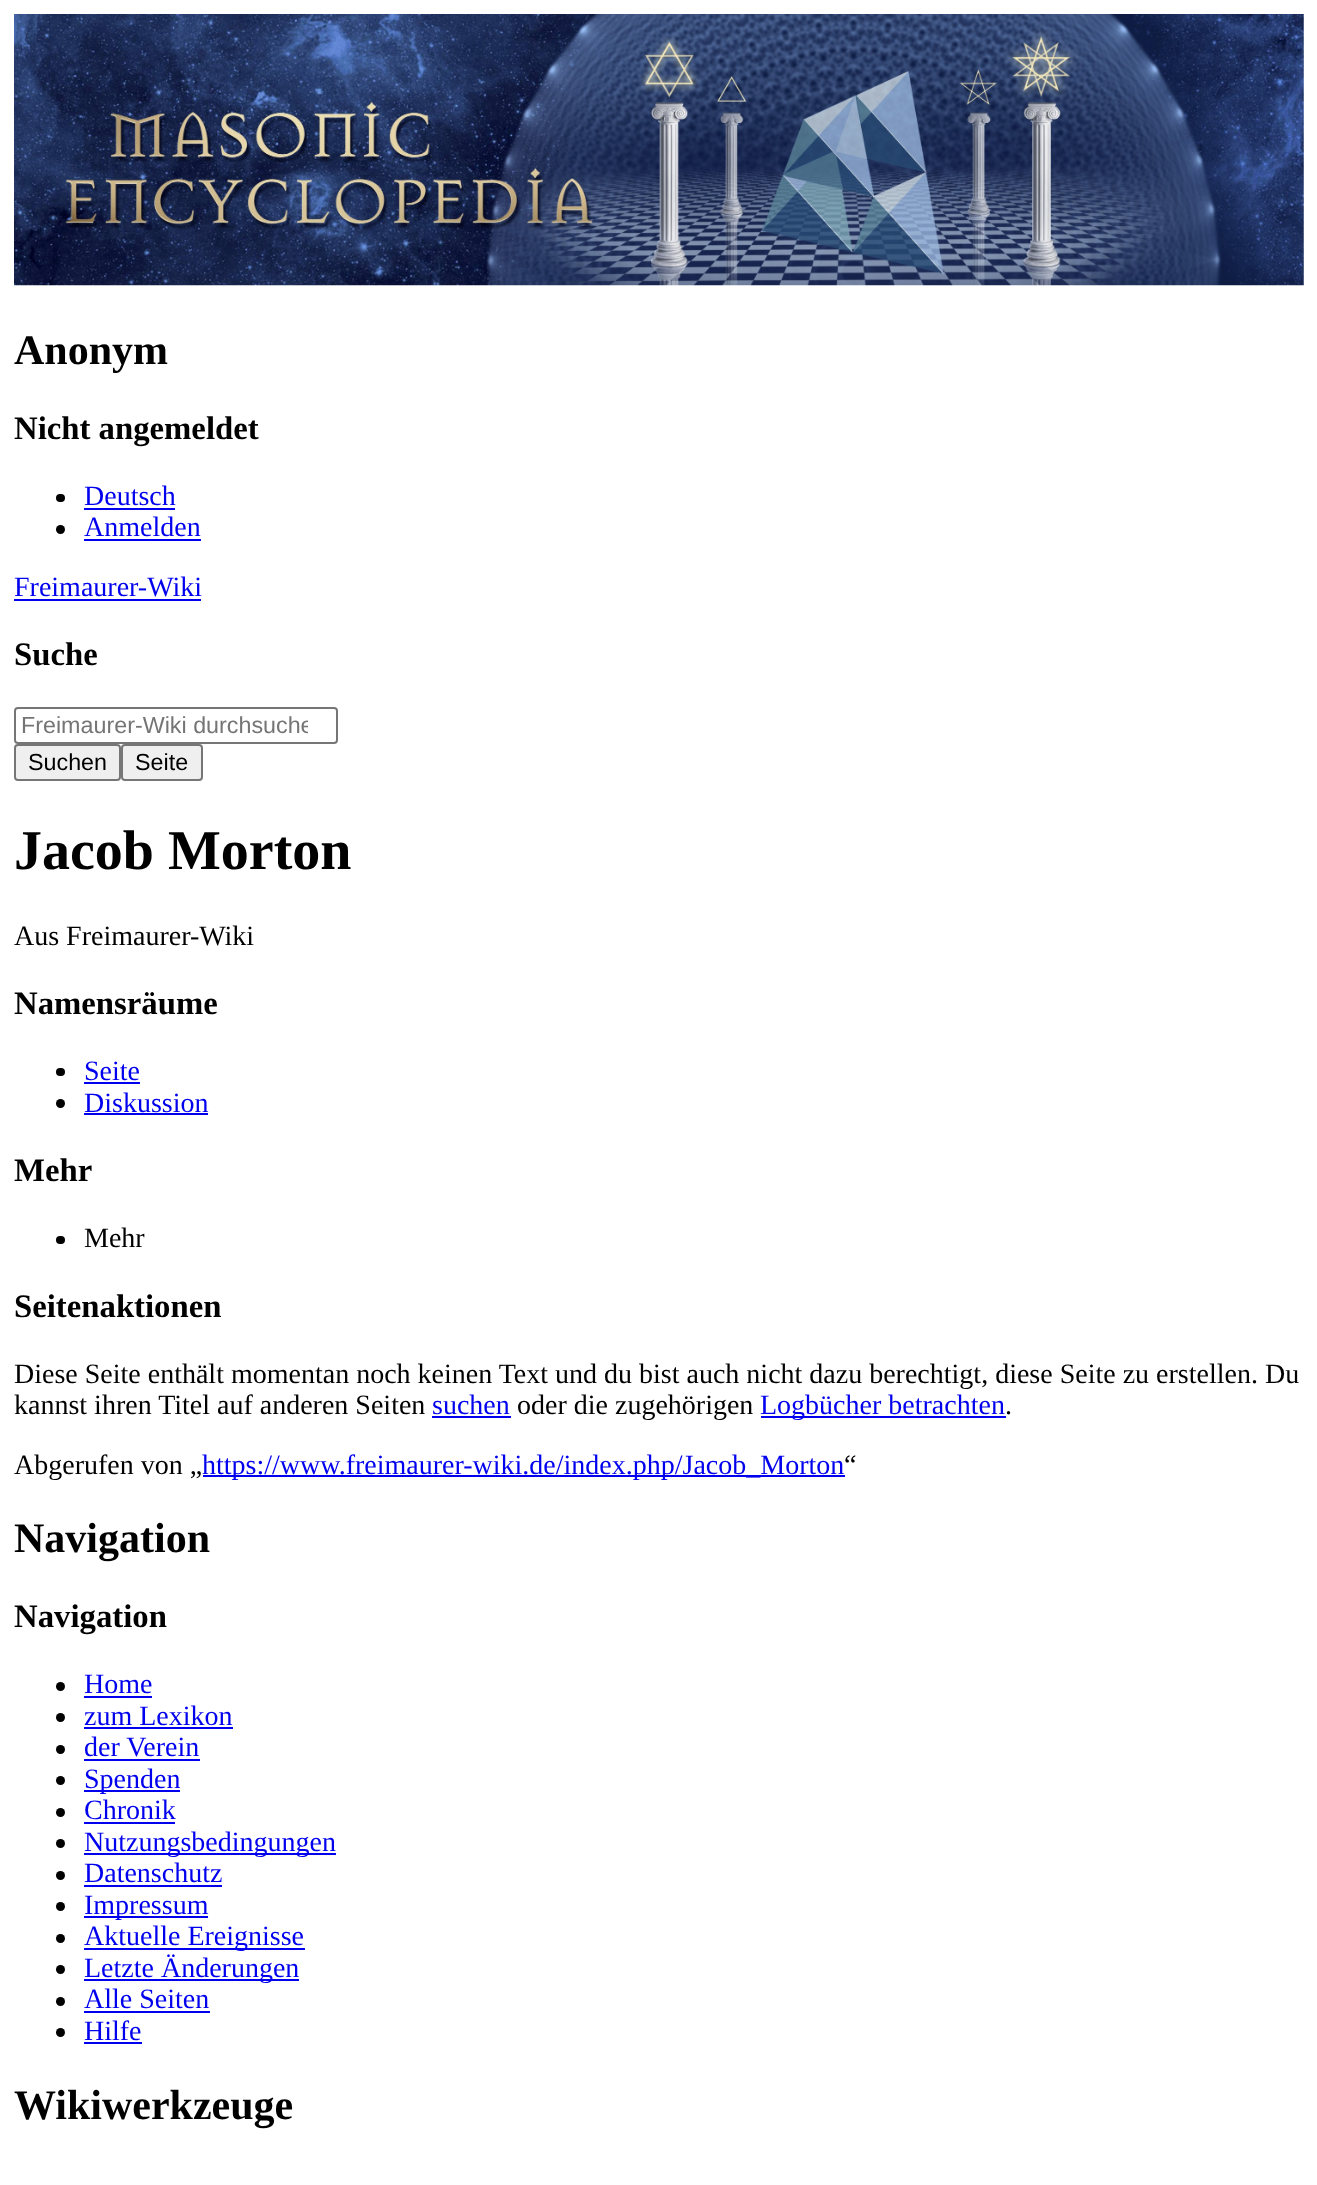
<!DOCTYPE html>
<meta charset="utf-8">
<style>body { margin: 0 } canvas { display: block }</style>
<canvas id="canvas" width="1317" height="2185"></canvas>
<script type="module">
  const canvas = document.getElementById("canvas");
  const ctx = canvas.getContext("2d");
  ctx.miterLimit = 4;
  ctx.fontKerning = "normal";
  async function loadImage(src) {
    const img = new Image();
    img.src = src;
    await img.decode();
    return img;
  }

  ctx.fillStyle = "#ffffff";
  ctx.fillRect(0, 0, 1317, 2185);
  ctx.drawImage(await loadImage("img1.png"), 14, 14, 1290, 272);
  ctx.font = "bold 42px Liberation Serif";
  ctx.fillStyle = "#000000";
  ctx.fillText("Anonym", 14, 364);
  ctx.font = "bold 32.75px Liberation Serif";
  ctx.fillText("Nicht angemeldet", 14, 439);
  ctx.beginPath();
  ctx.roundRect(56, 494, 9, 8, 4);
  ctx.fill();
  ctx.font = "28px Liberation Serif";
  ctx.fillStyle = "#0000ee";
  ctx.fillText("Deutsch", 84, 505);
  ctx.fillRect(84, 508, 91, 2);
  ctx.fillStyle = "#000000";
  ctx.beginPath();
  ctx.arc(60.5, 529.5, 4.5, 0, Math.PI * 2);
  ctx.fill();
  ctx.fillStyle = "#0000ee";
  ctx.fillText("Anmelden", 84, 536);
  ctx.fillRect(84, 539, 117, 2);
  ctx.fillText("Freimaurer-Wiki", 14, 596);
  ctx.fillRect(14, 599, 187, 2);
  ctx.font = "bold 32.75px Liberation Serif";
  ctx.fillStyle = "#000000";
  ctx.fillText("Suche", 14, 665);
  ctx.beginPath();
  ctx.roundRect(15, 708, 322, 35, 3);
  ctx.strokeStyle = "#767676";
  ctx.lineWidth = 2;
  ctx.stroke();
  ctx.save();
  ctx.beginPath();
  ctx.rect(21, 712, 287, 27);
  ctx.clip();
  ctx.font = "23.3px Liberation Sans";
  ctx.fillStyle = "#757575";
  ctx.fillText("Freimaurer-Wiki durchsuche", 21, 733);
  ctx.restore();
  ctx.fillStyle = "#efefef";
  ctx.beginPath();
  ctx.roundRect(15, 745, 105, 35, 3);
  ctx.fill();
  ctx.stroke();
  ctx.font = "23.3px Liberation Sans";
  ctx.fillStyle = "#000000";
  ctx.fillText("Suchen", 28, 770);
  ctx.fillStyle = "#efefef";
  ctx.beginPath();
  ctx.roundRect(122, 745, 80, 35, 3);
  ctx.fill();
  ctx.stroke();
  ctx.fillStyle = "#000000";
  ctx.fillText("Seite", 135, 770);
  ctx.font = "bold 56px Liberation Serif";
  ctx.fillText("Jacob Morton", 14, 869);
  ctx.font = "28px Liberation Serif";
  ctx.fillText("Aus Freimaurer-Wiki", 14, 945);
  ctx.font = "bold 32.75px Liberation Serif";
  ctx.fillText("Namensräume", 14, 1014);
  ctx.beginPath();
  ctx.roundRect(56, 1068, 9, 8, 4);
  ctx.fill();
  ctx.font = "28px Liberation Serif";
  ctx.fillStyle = "#0000ee";
  ctx.fillText("Seite", 84, 1080);
  ctx.fillRect(84, 1082, 56, 2);
  ctx.fillStyle = "#000000";
  ctx.beginPath();
  ctx.arc(60.5, 1103.5, 4.5, 0, Math.PI * 2);
  ctx.fill();
  ctx.fillStyle = "#0000ee";
  ctx.fillText("Diskussion", 84, 1112);
  ctx.fillRect(84, 1113, 124, 2);
  ctx.font = "bold 32.75px Liberation Serif";
  ctx.fillStyle = "#000000";
  ctx.fillText("Mehr", 14, 1181);
  ctx.beginPath();
  ctx.roundRect(56, 1236, 9, 8, 4);
  ctx.fill();
  ctx.font = "28px Liberation Serif";
  ctx.fillText("Mehr", 84, 1247);
  ctx.font = "bold 32.75px Liberation Serif";
  ctx.fillText("Seitenaktionen", 14, 1317);
  ctx.font = "28px Liberation Serif";
  ctx.fillText("Diese Seite enthält momentan noch keinen Text und du bist auch nicht dazu berechtigt, diese Seite zu erstellen. Du", 14, 1383);
  ctx.fillText("kannst ihren Titel auf anderen Seiten", 14, 1414);
  ctx.fillStyle = "#0000ee";
  ctx.fillText("suchen", 432, 1414);
  ctx.fillRect(432, 1416, 79, 2);
  ctx.fillStyle = "#000000";
  ctx.fillText("oder die zugehörigen", 517, 1414);
  ctx.fillStyle = "#0000ee";
  ctx.fillRect(761, 1416, 245, 2);
  ctx.fillText("Logbücher betrachten", 760, 1414);
  ctx.fillStyle = "#000000";
  ctx.fillText(".", 1005, 1414);
  ctx.fillText("Abgerufen von „", 14, 1474);
  ctx.fillStyle = "#0000ee";
  ctx.fillRect(203, 1475, 642, 2);
  ctx.fillText("https://www.freimaurer-wiki.de/index.php/Jacob_Morton", 202, 1474);
  ctx.fillStyle = "#000000";
  ctx.fillText("“", 844, 1474);
  ctx.font = "bold 42px Liberation Serif";
  ctx.fillText("Navigation", 14, 1552);
  ctx.font = "bold 32.75px Liberation Serif";
  ctx.fillText("Navigation", 14, 1627);
  ctx.beginPath();
  ctx.arc(60.5, 1686.5, 4.5, 0, Math.PI * 2);
  ctx.fill();
  ctx.font = "28px Liberation Serif";
  ctx.fillStyle = "#0000ee";
  ctx.fillText("Home", 84, 1693);
  ctx.fillRect(84, 1696, 68, 2);
  ctx.fillStyle = "#000000";
  ctx.beginPath();
  ctx.arc(60.5, 1717.5, 4.5, 0, Math.PI * 2);
  ctx.fill();
  ctx.fillStyle = "#0000ee";
  ctx.fillText("zum Lexikon", 84, 1725);
  ctx.fillRect(84, 1727, 149, 2);
  ctx.fillStyle = "#000000";
  ctx.beginPath();
  ctx.arc(60.5, 1749.5, 4.5, 0, Math.PI * 2);
  ctx.fill();
  ctx.fillStyle = "#0000ee";
  ctx.fillText("der Verein", 84, 1756);
  ctx.fillRect(84, 1759, 116, 2);
  ctx.fillStyle = "#000000";
  ctx.beginPath();
  ctx.arc(60.5, 1780.5, 4.5, 0, Math.PI * 2);
  ctx.fill();
  ctx.fillStyle = "#0000ee";
  ctx.fillRect(84, 1790, 96, 2);
  ctx.fillText("Spenden", 84, 1788);
  ctx.fillStyle = "#000000";
  ctx.beginPath();
  ctx.arc(60.5, 1812.5, 4.5, 0, Math.PI * 2);
  ctx.fill();
  ctx.fillStyle = "#0000ee";
  ctx.fillText("Chronik", 84, 1819);
  ctx.fillRect(84, 1822, 91, 2);
  ctx.fillStyle = "#000000";
  ctx.beginPath();
  ctx.arc(60.5, 1843.5, 4.5, 0, Math.PI * 2);
  ctx.fill();
  ctx.fillStyle = "#0000ee";
  ctx.fillRect(84, 1853, 252, 2);
  ctx.fillText("Nutzungsbedingungen", 84, 1851);
  ctx.fillStyle = "#000000";
  ctx.beginPath();
  ctx.arc(60.5, 1875.5, 4.5, 0, Math.PI * 2);
  ctx.fill();
  ctx.fillStyle = "#0000ee";
  ctx.fillText("Datenschutz", 84, 1882);
  ctx.fillRect(84, 1885, 138, 2);
  ctx.fillStyle = "#000000";
  ctx.beginPath();
  ctx.arc(60.5, 1906.5, 4.5, 0, Math.PI * 2);
  ctx.fill();
  ctx.fillStyle = "#0000ee";
  ctx.fillRect(84, 1916, 124, 2);
  ctx.fillText("Impressum", 84, 1914);
  ctx.fillStyle = "#000000";
  ctx.beginPath();
  ctx.arc(60.5, 1938.5, 4.5, 0, Math.PI * 2);
  ctx.fill();
  ctx.fillStyle = "#0000ee";
  ctx.fillRect(84, 1948, 221, 2);
  ctx.fillText("Aktuelle Ereignisse", 84, 1945);
  ctx.fillStyle = "#000000";
  ctx.beginPath();
  ctx.arc(60.5, 1969.5, 4.5, 0, Math.PI * 2);
  ctx.fill();
  ctx.fillStyle = "#0000ee";
  ctx.fillRect(84, 1979, 215, 2);
  ctx.fillText("Letzte Änderungen", 84, 1977);
  ctx.fillStyle = "#000000";
  ctx.beginPath();
  ctx.arc(60.5, 2001.5, 4.5, 0, Math.PI * 2);
  ctx.fill();
  ctx.fillStyle = "#0000ee";
  ctx.fillText("Alle Seiten", 84, 2008);
  ctx.fillRect(84, 2011, 126, 2);
  ctx.fillStyle = "#000000";
  ctx.beginPath();
  ctx.arc(60.5, 2032.5, 4.5, 0, Math.PI * 2);
  ctx.fill();
  ctx.fillStyle = "#0000ee";
  ctx.fillText("Hilfe", 84, 2040);
  ctx.fillRect(84, 2042, 58, 2);
  ctx.font = "bold 42px Liberation Serif";
  ctx.fillStyle = "#000000";
  ctx.fillText("Wikiwerkzeuge", 14, 2119);
</script>
